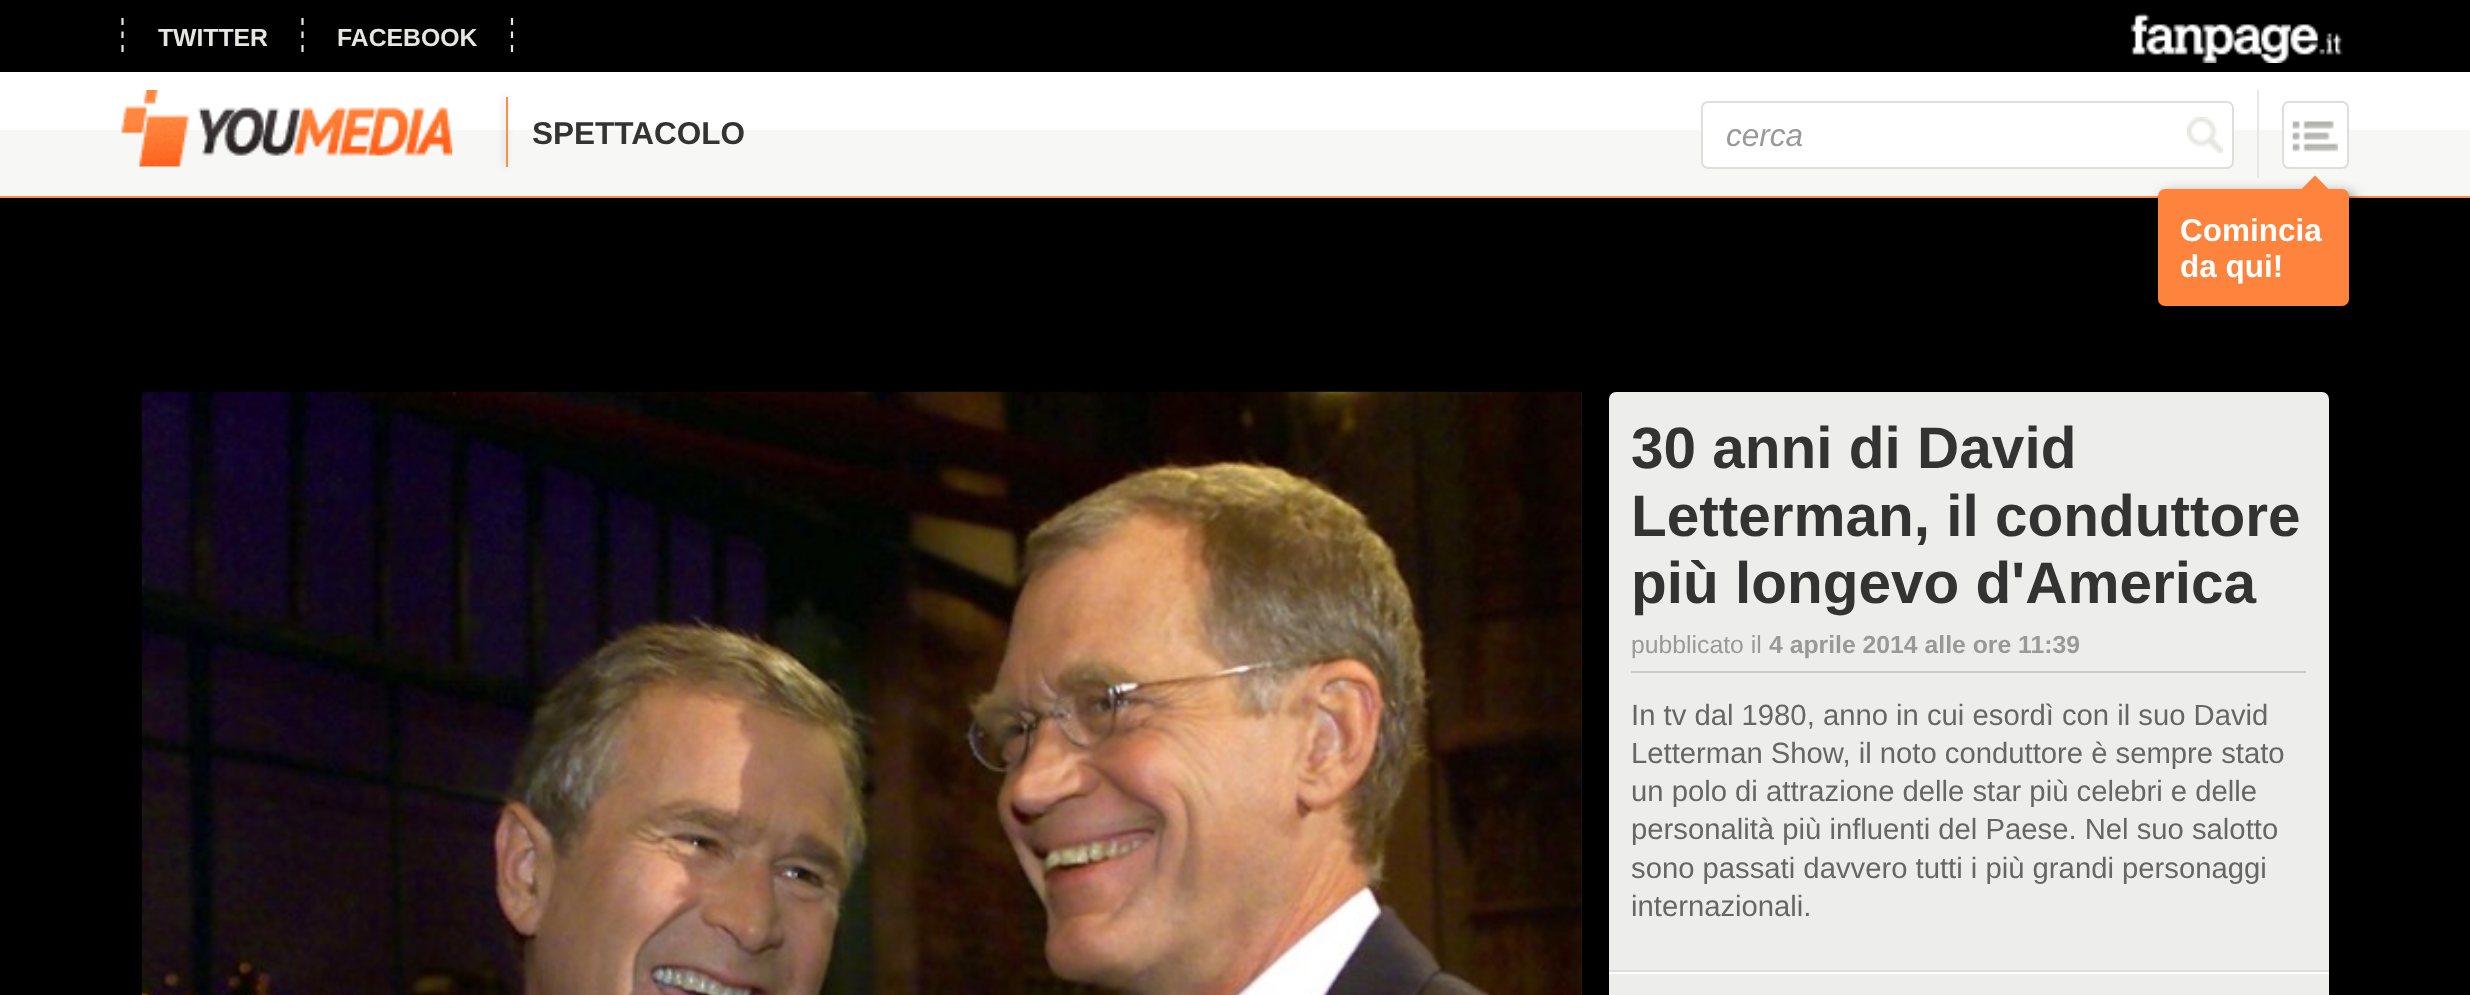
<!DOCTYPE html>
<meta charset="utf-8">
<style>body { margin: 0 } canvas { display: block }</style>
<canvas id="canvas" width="2470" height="995"></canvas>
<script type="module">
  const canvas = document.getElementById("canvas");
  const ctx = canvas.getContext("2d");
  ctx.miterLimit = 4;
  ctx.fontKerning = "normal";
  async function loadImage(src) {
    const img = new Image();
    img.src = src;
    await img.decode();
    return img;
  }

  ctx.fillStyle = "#000000";
  ctx.fillRect(0, 0, 2470, 995);
  ctx.beginPath();
  ctx.moveTo(302.5, 18);
  ctx.lineTo(302.5, 25);
  ctx.moveTo(302.5, 31.5);
  ctx.lineTo(302.5, 38);
  ctx.moveTo(302.5, 45);
  ctx.lineTo(302.5, 52);
  ctx.strokeStyle = "#e6e6e3";
  ctx.lineWidth = 2.2;
  ctx.stroke();
  ctx.beginPath();
  ctx.moveTo(122.5, 18);
  ctx.lineTo(122.5, 25);
  ctx.moveTo(122.5, 31.5);
  ctx.lineTo(122.5, 38);
  ctx.moveTo(122.5, 45);
  ctx.lineTo(122.5, 52);
  ctx.stroke();
  ctx.font = "bold 24.75px Liberation Sans";
  ctx.fillStyle = "#e6e6e3";
  ctx.fillText("TWITTER", 158, 46);
  ctx.beginPath();
  ctx.moveTo(512, 18);
  ctx.lineTo(512, 25);
  ctx.moveTo(512, 31.5);
  ctx.lineTo(512, 38);
  ctx.moveTo(512, 45);
  ctx.lineTo(512, 52);
  ctx.stroke();
  ctx.fillText("FACEBOOK", 337, 46);
  ctx.drawImage(await loadImage("img1.png"), 2130, 13, 213, 50);
  ctx.fillStyle = "#ffffff";
  ctx.fillRect(0, 72, 2470, 58);
  ctx.fillStyle = "#f7f7f5";
  ctx.fillRect(0, 130, 2470, 66);
  ctx.fillStyle = "#fe8d45";
  ctx.fillRect(0, 196, 2470, 2);
  ctx.drawImage(await loadImage("img2.png"), 121, 90, 332, 77);
  ctx.fillStyle = "rgba(0, 0, 0, 0.2)";
  ctx.filter = "blur(3.5px)";
  ctx.beginPath();
  ctx.rect(504, 97, 2, 70);
  ctx.fill();
  ctx.filter = "none";
  ctx.fillStyle = "#fe8d45";
  ctx.fillRect(506, 97, 2, 70);
  ctx.font = "bold 31.5px Liberation Sans";
  ctx.fillStyle = "#333333";
  ctx.fillText("SPETTACOLO", 532, 144);
  ctx.fillStyle = "#ffffff";
  ctx.beginPath();
  ctx.roundRect(1701, 101, 533, 68, 7);
  ctx.fill();
  ctx.drawImage(await loadImage("img3.png"), 2187, 117, 36, 36);
  ctx.beginPath();
  ctx.roundRect(1702, 102, 531, 66, 6);
  ctx.strokeStyle = "#dedede";
  ctx.lineWidth = 2;
  ctx.stroke();
  ctx.font = "italic 31.5px Liberation Sans";
  ctx.fillStyle = "#999999";
  ctx.fillText("cerca", 1726, 146);
  ctx.fillStyle = "#e6e6e3";
  ctx.fillRect(2257, 90, 2, 88);
  ctx.fillStyle = "#ffffff";
  ctx.beginPath();
  ctx.roundRect(2282, 101, 67, 68, 7);
  ctx.fill();
  ctx.drawImage(await loadImage("img4.png"), 2292, 121, 46, 31);
  ctx.beginPath();
  ctx.roundRect(2283, 102, 65, 66, 6);
  ctx.stroke();
  ctx.fillStyle = "rgba(0, 0, 0, 0.5)";
  ctx.filter = "blur(7px)";
  ctx.beginPath();
  ctx.roundRect(2162, 194, 192, 117, 7);
  ctx.fill();
  ctx.filter = "none";
  ctx.fillStyle = "#fe843d";
  ctx.beginPath();
  ctx.roundRect(2158, 189, 191, 117, 7);
  ctx.fill();
  ctx.beginPath();
  ctx.moveTo(2333, 193.5);
  ctx.lineTo(2297, 193.5);
  ctx.lineTo(2315, 175.5);
  ctx.closePath();
  ctx.fill();
  ctx.font = "bold 31.5px Liberation Sans";
  ctx.fillStyle = "#ffffff";
  ctx.fillText("Comincia", 2180, 241);
  ctx.fillText("da qui!", 2180, 277);
  ctx.fillStyle = "#212121";
  ctx.fillRect(1581, 392, 1, 603);
  ctx.drawImage(await loadImage("img5.png"), 141, 391, 1441, 604);
  ctx.fillStyle = "#ededeb";
  ctx.beginPath();
  ctx.roundRect(1609, 392, 720, 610, 7);
  ctx.fill();
  ctx.font = "bold 58.5px Liberation Sans";
  ctx.fillStyle = "#333333";
  ctx.fillText("30 anni di David", 1631, 468);
  ctx.fillText("Letterman, il conduttore", 1631, 536);
  ctx.fillText("più longevo d'America", 1631, 603);
  ctx.fillStyle = "#cccccc";
  ctx.fillRect(1631, 671, 675, 2);
  ctx.font = "24.75px Liberation Sans";
  ctx.fillStyle = "#999999";
  ctx.fillText("pubblicato il", 1631, 653);
  ctx.font = "bold 24.75px Liberation Sans";
  ctx.fillText("4 aprile 2014 alle ore 11:39", 1769, 653);
  ctx.font = "29.25px Liberation Sans";
  ctx.fillStyle = "#666666";
  ctx.fillText("In tv dal 1980, anno in cui esordì con il suo David", 1631, 725);
  ctx.fillText("Letterman Show, il noto conduttore è sempre stato", 1631, 763);
  ctx.fillText("un polo di attrazione delle star più celebri e delle", 1631, 801);
  ctx.fillText("personalità più influenti del Paese. Nel suo salotto", 1631, 839);
  ctx.fillText("sono passati davvero tutti i più grandi personaggi", 1631, 878);
  ctx.fillText("internazionali.", 1631, 916);
  ctx.fillStyle = "#dedede";
  ctx.fillRect(1609, 970, 720, 2);
  ctx.fillStyle = "#ffffff";
  ctx.fillRect(1609, 972, 720, 2);
</script>
